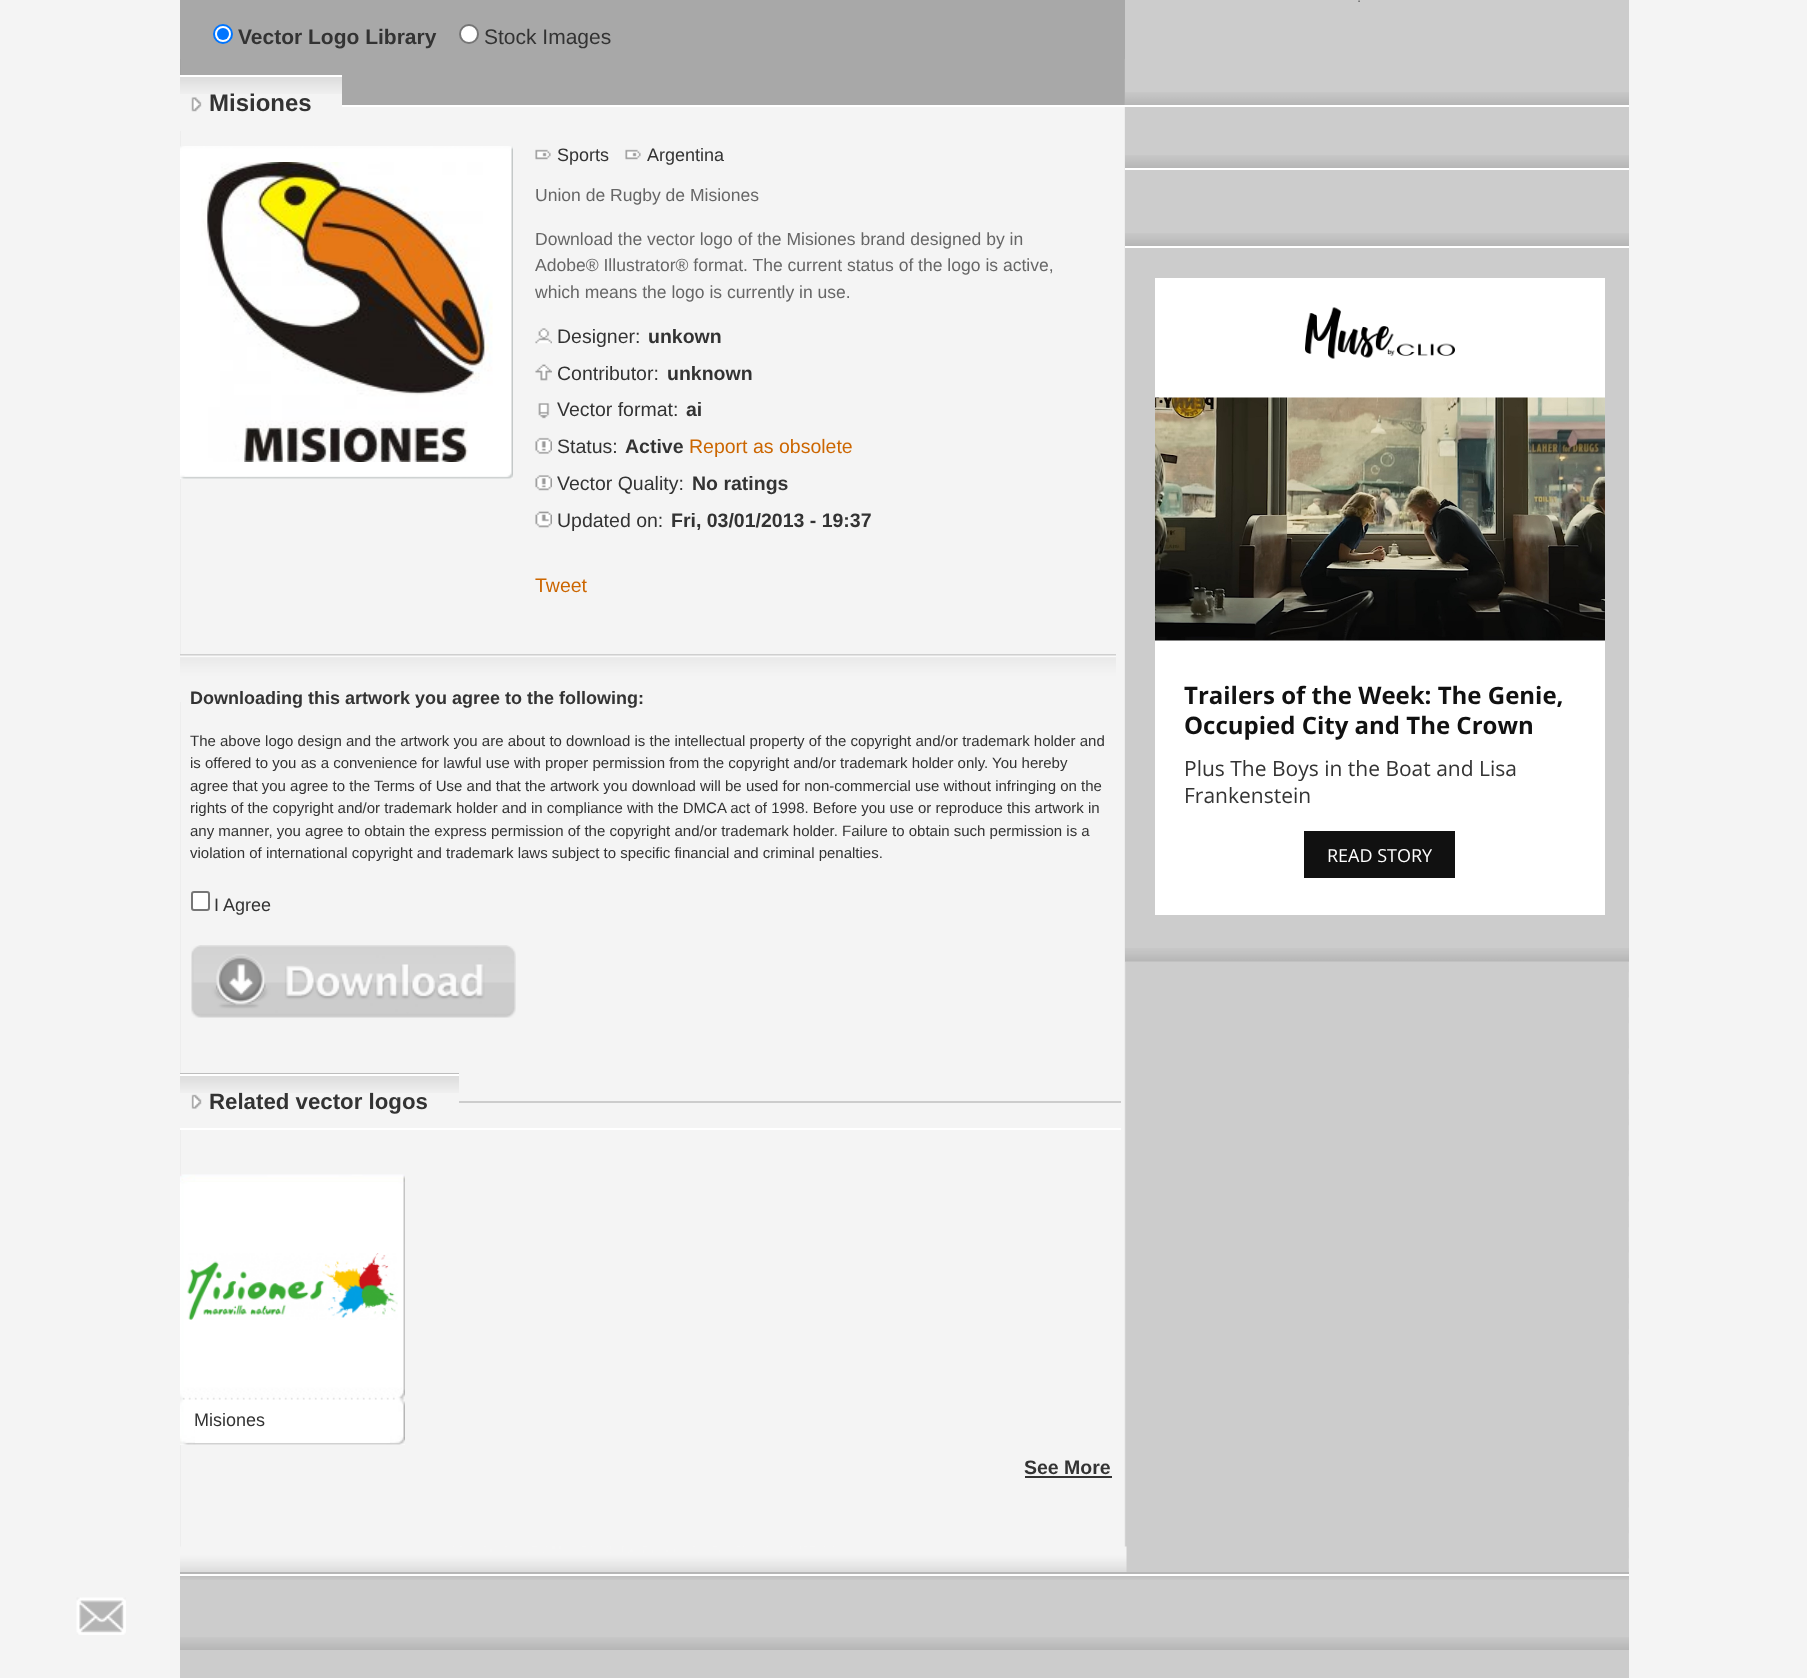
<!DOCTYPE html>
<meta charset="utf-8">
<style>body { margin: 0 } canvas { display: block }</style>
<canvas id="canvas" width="1807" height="1678"></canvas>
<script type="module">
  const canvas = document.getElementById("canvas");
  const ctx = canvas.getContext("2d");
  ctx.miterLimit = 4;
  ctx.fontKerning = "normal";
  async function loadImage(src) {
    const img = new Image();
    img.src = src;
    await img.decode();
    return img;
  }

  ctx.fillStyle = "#f4f4f4";
  ctx.fillRect(0, 0, 1807, 1678);
  ctx.drawImage(await loadImage("img1.png"), 180, 59, 945, 46);
  ctx.fillStyle = "#cccccc";
  ctx.fillRect(1125, 0, 504, 92);
  ctx.drawImage(await loadImage("img2.png"), 1125, 92, 504, 13);
  ctx.font = "15px Liberation Sans";
  ctx.fillStyle = "#666666";
  ctx.fillText(".", 1357, 2);
  ctx.fillStyle = "#a8a8a8";
  ctx.fillRect(180, 0, 945, 59);
  ctx.fillStyle = "#ffffff";
  ctx.beginPath();
  ctx.arc(223, 34, 9, 0, Math.PI * 2);
  ctx.fill();
  ctx.strokeStyle = "#0075ff";
  ctx.lineWidth = 2;
  ctx.stroke();
  ctx.fillStyle = "#0075ff";
  ctx.beginPath();
  ctx.arc(223, 34, 6, 0, Math.PI * 2);
  ctx.fill();
  ctx.font = "bold 21px Liberation Sans";
  ctx.fillStyle = "#333333";
  ctx.fillText("Vector Logo Library", 238, 44);
  ctx.fillStyle = "#ffffff";
  ctx.beginPath();
  ctx.arc(469, 34, 9, 0, Math.PI * 2);
  ctx.fill();
  ctx.strokeStyle = "#767676";
  ctx.stroke();
  ctx.font = "21px Liberation Sans";
  ctx.fillStyle = "#333333";
  ctx.fillText("Stock Images", 484, 44);
  ctx.drawImage(await loadImage("img3.png"), 180, 107, 1449, 1465);
  ctx.drawImage(await loadImage("img4.png"), 180, 1546, 947, 26);
  ctx.fillStyle = "#ffffff";
  ctx.fillRect(342, 105, 1287, 2);
  ctx.fillStyle = "#b6b6b6";
  ctx.fillRect(180, 1572, 1449, 2);
  ctx.fillStyle = "#f4f4f4";
  ctx.fillRect(180, 94, 162, 37);
  ctx.drawImage(await loadImage("img5.png"), 180, 77, 162, 17);
  ctx.drawImage(await loadImage("img6.png"), 191, 97, 11, 15);
  ctx.fillStyle = "#ffffff";
  ctx.fillRect(180, 75, 162, 2);
  ctx.font = "bold 24px Liberation Sans";
  ctx.fillStyle = "#333333";
  ctx.fillText("Misiones", 209, 111);
  ctx.fillStyle = "#ffffff";
  ctx.fillRect(180, 478, 333, 1);
  ctx.drawImage(await loadImage("img7.png"), 180, 146, 333, 333);
  ctx.drawImage(await loadImage("img8.png"), 201, 162, 292, 300);
  ctx.drawImage(await loadImage("img9.png"), 535, 149, 16, 11);
  ctx.font = "18px Liberation Sans";
  ctx.fillStyle = "#333333";
  ctx.fillText("Sports", 557, 161);
  ctx.drawImage(await loadImage("img9.png"), 625, 149, 16, 11);
  ctx.fillText("Argentina", 647, 161);
  ctx.font = "17.55px Liberation Sans";
  ctx.fillStyle = "#666666";
  ctx.fillText("Union de Rugby de Misiones", 535, 201);
  ctx.fillText("Download the vector logo of the Misiones brand designed by in", 535, 245);
  ctx.fillText("Adobe® Illustrator® format. The current status of the logo is active,", 535, 271);
  ctx.fillText("which means the logo is currently in use.", 535, 298);
  ctx.drawImage(await loadImage("img10.png"), 535, 328, 17, 16);
  ctx.font = "19.5px Liberation Sans";
  ctx.fillStyle = "#333333";
  ctx.fillText("Designer:", 557, 343);
  ctx.font = "bold 19.5px Liberation Sans";
  ctx.fillText("unkown", 648, 343);
  ctx.drawImage(await loadImage("img11.png"), 535, 364, 17, 17);
  ctx.font = "19.5px Liberation Sans";
  ctx.fillText("Contributor:", 557, 380);
  ctx.font = "bold 19.5px Liberation Sans";
  ctx.fillText("unknown", 667, 380);
  ctx.drawImage(await loadImage("img12.png"), 538, 403, 12, 16);
  ctx.font = "19.5px Liberation Sans";
  ctx.fillText("Vector format:", 557, 416);
  ctx.font = "bold 19.5px Liberation Sans";
  ctx.fillText("ai", 686, 416);
  ctx.drawImage(await loadImage("img13.png"), 535, 437, 17, 17);
  ctx.font = "19.5px Liberation Sans";
  ctx.fillText("Status:", 557, 453);
  ctx.font = "bold 19.5px Liberation Sans";
  ctx.fillText("Active", 625, 453);
  ctx.font = "19.5px Liberation Sans";
  ctx.fillStyle = "#cc6600";
  ctx.fillText("Report as obsolete", 689, 453);
  ctx.drawImage(await loadImage("img14.png"), 535, 475, 17, 16);
  ctx.fillStyle = "#333333";
  ctx.fillText("Vector Quality:", 557, 490);
  ctx.font = "bold 19.5px Liberation Sans";
  ctx.fillText("No ratings", 692, 490);
  ctx.drawImage(await loadImage("img15.png"), 535, 511, 17, 17);
  ctx.font = "19.5px Liberation Sans";
  ctx.fillText("Updated on:", 557, 527);
  ctx.font = "bold 19.5px Liberation Sans";
  ctx.fillText("Fri, 03/01/2013 - 19:37", 671, 527);
  ctx.font = "19.5px Liberation Sans";
  ctx.fillStyle = "#cc6600";
  ctx.fillText("Tweet", 535, 592);
  ctx.drawImage(await loadImage("img16.png"), 180, 654, 936, 48);
  ctx.font = "bold 18px Liberation Sans";
  ctx.fillStyle = "#333333";
  ctx.fillText("Downloading this artwork you agree to the following:", 190, 704);
  ctx.font = "15px Liberation Sans";
  ctx.fillText("The above logo design and the artwork you are about to download is the intellectual property of the copyright and/or trademark holder and", 190, 746);
  ctx.fillText("is offered to you as a convenience for lawful use with proper permission from the copyright and/or trademark holder only. You hereby", 190, 768);
  ctx.fillText("agree that you agree to the Terms of Use and that the artwork you download will be used for non-commercial use without infringing on the", 190, 791);
  ctx.fillText("rights of the copyright and/or trademark holder and in compliance with the DMCA act of 1998. Before you use or reproduce this artwork in", 190, 813);
  ctx.fillText("any manner, you agree to obtain the express permission of the copyright and/or trademark holder. Failure to obtain such permission is a", 190, 836);
  ctx.fillText("violation of international copyright and trademark laws subject to specific financial and criminal penalties.", 190, 858);
  ctx.fillStyle = "#ffffff";
  ctx.beginPath();
  ctx.roundRect(192, 892, 17, 18, 2);
  ctx.fill();
  ctx.stroke();
  ctx.font = "18px Liberation Sans";
  ctx.fillStyle = "#333333";
  ctx.fillText("I Agree", 214, 911);
  ctx.drawImage(await loadImage("img17.png"), 191, 945, 325, 73);
  ctx.fillStyle = "#cccccc";
  ctx.fillRect(459, 1101, 662, 2);
  ctx.fillStyle = "#f4f4f4";
  ctx.fillRect(180, 1093, 1, 35);
  ctx.drawImage(await loadImage("img18.png"), 180, 1076, 279, 17);
  ctx.fillStyle = "#bdbdbd";
  ctx.fillRect(180, 1073, 279, 1);
  ctx.drawImage(await loadImage("img19.png"), 191, 1094, 11, 15);
  ctx.fillStyle = "#ffffff";
  ctx.fillRect(180, 1074, 279, 2);
  ctx.font = "bold 22.25px Liberation Sans";
  ctx.fillStyle = "#333333";
  ctx.fillText("Related vector logos", 209, 1109);
  ctx.fillStyle = "#ffffff";
  ctx.fillRect(180, 1128, 941, 2);
  ctx.fillRect(180, 1444, 225, 1);
  ctx.drawImage(await loadImage("img20.png"), 180, 1174, 225, 271);
  ctx.drawImage(await loadImage("img21.png"), 187, 1182, 211, 138);
  ctx.fillRect(195, 1412, 195, 31);
  ctx.font = "18px Liberation Sans";
  ctx.fillStyle = "#333333";
  ctx.fillText("Misiones", 194, 1426);
  ctx.font = "bold 19.5px Liberation Sans";
  ctx.fillText("See More", 1024, 1474);
  ctx.fillRect(1025, 1476, 87, 2);
  ctx.fillStyle = "#cccccc";
  ctx.fillRect(1125, 107, 504, 855);
  ctx.drawImage(await loadImage("img2.png"), 1125, 155, 504, 13);
  ctx.drawImage(await loadImage("img22.png"), 1125, 233, 504, 13);
  ctx.fillStyle = "#ffffff";
  ctx.fillRect(1125, 168, 504, 2);
  ctx.drawImage(await loadImage("img23.png"), 1125, 948, 504, 14);
  ctx.fillRect(1125, 246, 504, 2);
  ctx.fillRect(1155, 278, 450, 637);
  ctx.drawImage(await loadImage("img24.png"), 1305, 307, 150, 52);
  ctx.drawImage(await loadImage("img25.png"), 1155, 397, 450, 244);
  ctx.font = "bold 24px Open Sans";
  ctx.fillStyle = "#111111";
  ctx.fillText("Trailers of the Week: The Genie,", 1184, 704);
  ctx.fillText("Occupied City and The Crown", 1184, 734);
  ctx.font = "21px Open Sans";
  ctx.fillStyle = "#333333";
  ctx.fillText("Plus The Boys in the Boat and Lisa", 1184, 776);
  ctx.fillText("Frankenstein", 1184, 803);
  ctx.fillStyle = "#111111";
  ctx.fillRect(1304, 831, 151, 47);
  ctx.font = "18px Open Sans";
  ctx.fillStyle = "#ffffff";
  ctx.fillText("READ STORY", 1327, 862);
  ctx.fillStyle = "#cccccc";
  ctx.fillRect(180, 1580, 1449, 98);
  ctx.drawImage(await loadImage("img26.png"), 180, 1576, 1449, 4);
  ctx.fillStyle = "#ffffff";
  ctx.fillRect(180, 1574, 1449, 2);
  ctx.drawImage(await loadImage("img27.png"), 180, 1637, 1449, 13);
  ctx.drawImage(await loadImage("img28.png"), 76, 1597, 50, 38);
</script>
